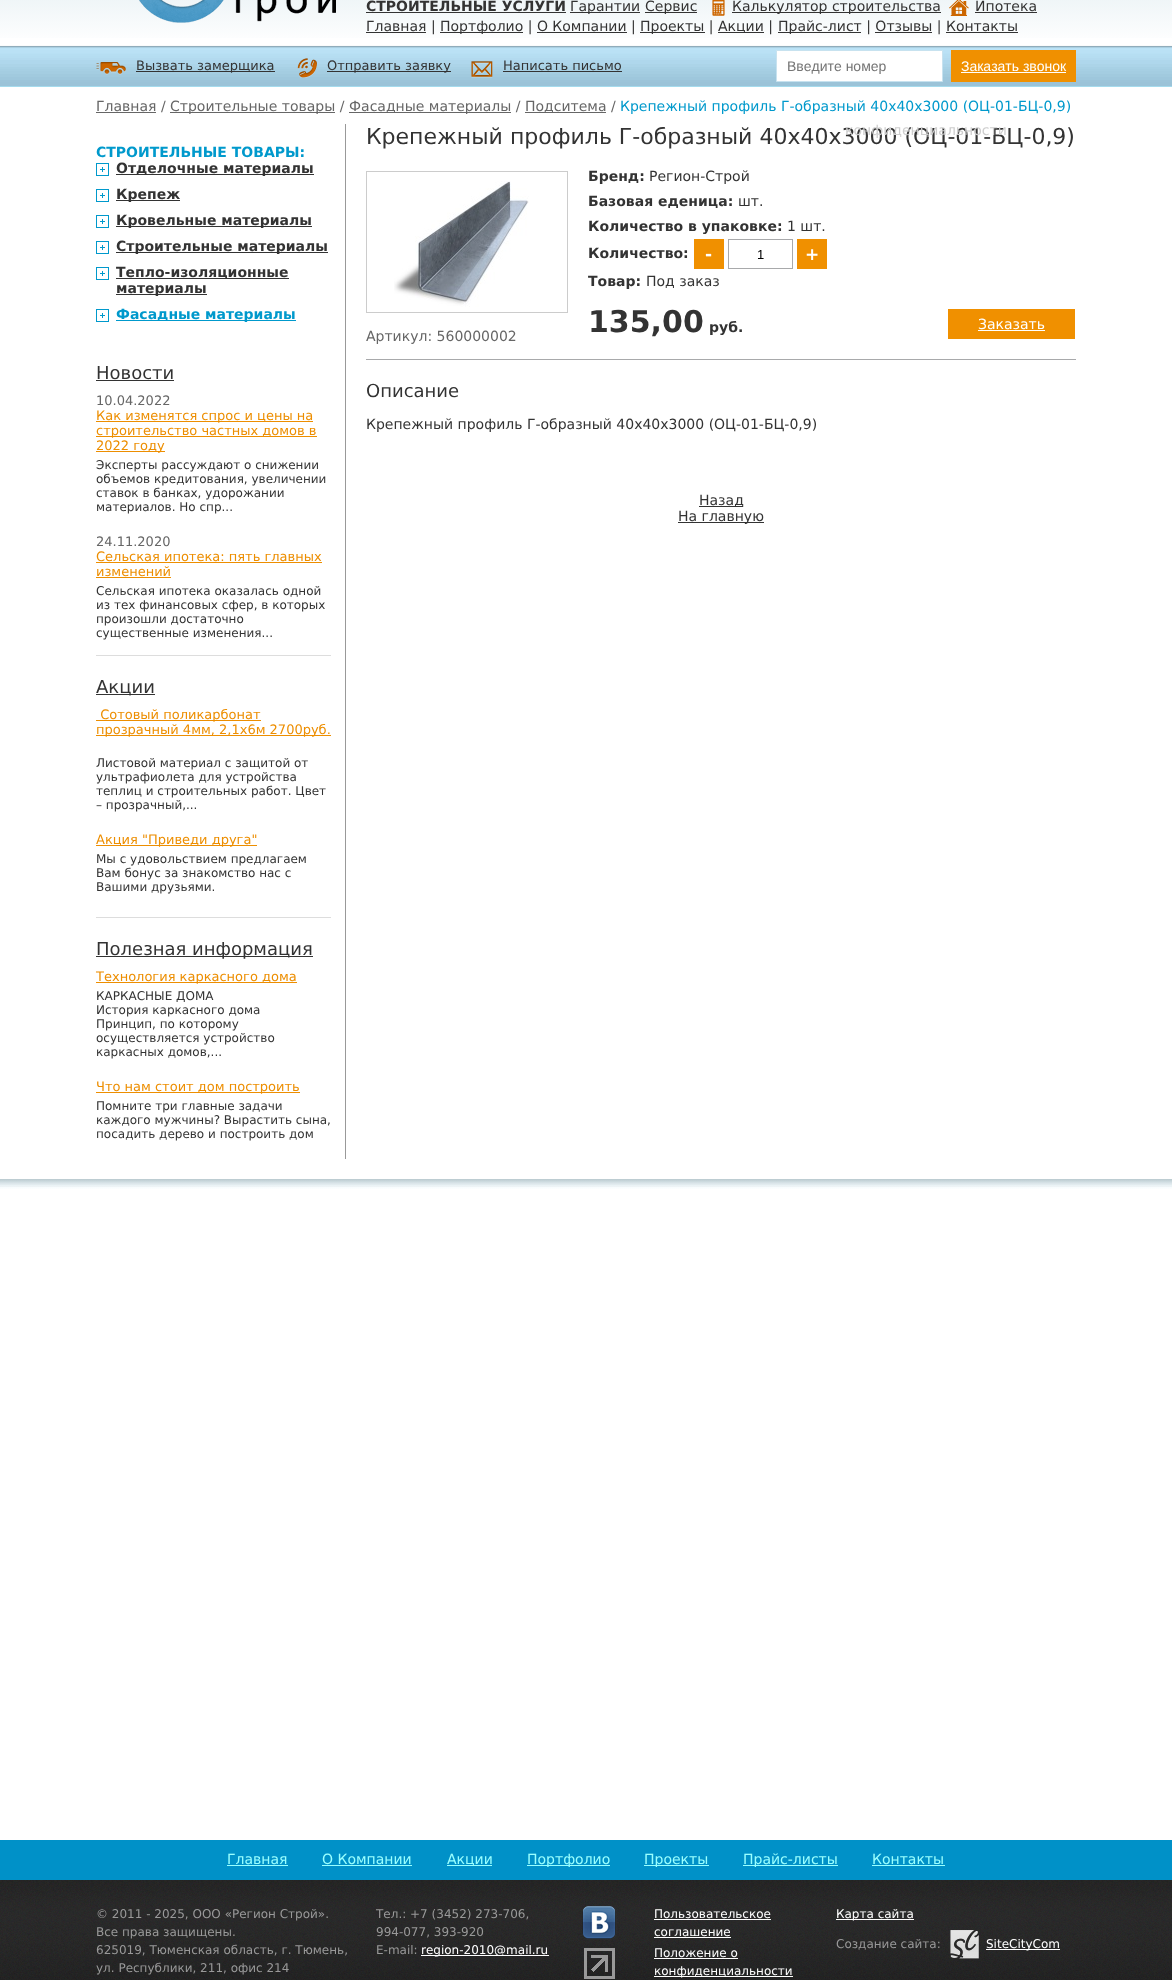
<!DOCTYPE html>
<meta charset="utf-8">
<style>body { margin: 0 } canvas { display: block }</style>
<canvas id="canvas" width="1172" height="1980"></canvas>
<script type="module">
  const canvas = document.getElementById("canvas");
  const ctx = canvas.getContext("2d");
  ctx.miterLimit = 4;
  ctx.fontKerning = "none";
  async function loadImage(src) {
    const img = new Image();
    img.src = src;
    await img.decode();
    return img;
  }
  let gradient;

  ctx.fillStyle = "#ffffff";
  ctx.fillRect(0, 0, 1172, 1980);
  gradient = ctx.createLinearGradient(586, -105, 586, 45);
  gradient.addColorStop(0, "#cbdfe6");
  gradient.addColorStop(1, "#ffffff");
  ctx.fillStyle = gradient;
  ctx.fillRect(0, 0, 1172, 38);
  ctx.fillStyle = "#fafbfb";
  ctx.fillRect(0, 45, 1172, 1);
  ctx.drawImage(await loadImage("img1.png"), 139, 0, 197, 23);
  ctx.font = "bold 14px DejaVu Sans";
  ctx.fillStyle = "#333333";
  ctx.fillText("СТРОИТЕЛЬНЫЕ УСЛУГИ", 366, 11);
  ctx.fillRect(366, 12, 200, 1);
  ctx.fillRect(570, 12, 70, 1);
  ctx.font = "14px DejaVu Sans";
  ctx.fillText("Гарантии", 570, 11);
  ctx.fillRect(645, 12, 52, 1);
  ctx.fillText("Сервис", 645, 11);
  ctx.drawImage(await loadImage("img2.png"), 712, 0, 13, 16);
  ctx.fillRect(732, 12, 209, 1);
  ctx.fillText("Калькулятор строительства", 732, 11);
  ctx.drawImage(await loadImage("img3.png"), 949, 0, 20, 16);
  ctx.fillText("Ипотека", 975, 11);
  ctx.fillRect(975, 12, 62, 1);
  ctx.fillRect(366, 32, 60, 1);
  ctx.fillText("Главная |", 366, 31);
  ctx.fillRect(440, 32, 83, 1);
  ctx.fillText("Портфолио | О Компании |", 440, 31);
  ctx.fillRect(640, 32, 65, 1);
  ctx.fillText("Проекты |", 640, 31);
  ctx.fillRect(718, 32, 46, 1);
  ctx.fillText("Акции |", 718, 31);
  ctx.fillRect(778, 32, 83, 1);
  ctx.fillText("Прайс-лист | Отзывы | Контакты", 778, 31);
  ctx.fillRect(537, 32, 90, 1);
  ctx.fillRect(875, 32, 57, 1);
  ctx.fillRect(946, 32, 72, 1);
  ctx.drawImage(await loadImage("img4.png"), 0, 46, 1172, 40);
  ctx.fillStyle = "#a5dbed";
  ctx.fillRect(0, 86, 1172, 1);
  ctx.drawImage(await loadImage("img5.png"), 96, 62, 30, 13);
  ctx.fillStyle = "#333333";
  ctx.fillRect(136, 71, 139, 1);
  ctx.font = "13px DejaVu Sans";
  ctx.fillText("Вызвать замерщика", 136, 70);
  ctx.drawImage(await loadImage("img6.png"), 297, 58, 20, 20);
  ctx.fillRect(327, 71, 124, 1);
  ctx.fillText("Отправить заявку", 327, 70);
  ctx.drawImage(await loadImage("img7.png"), 471, 61, 22, 17);
  ctx.fillText("Написать письмо", 503, 70);
  ctx.fillRect(503, 71, 119, 1);
  ctx.fillStyle = "#ffffff";
  ctx.beginPath();
  ctx.rect(776.5, 50.5, 166, 31);
  ctx.fill();
  ctx.strokeStyle = "#c7e2ef";
  ctx.stroke();
  ctx.font = "14px Liberation Sans";
  ctx.fillStyle = "#757575";
  ctx.fillText("Введите номер", 787, 71);
  ctx.fillStyle = "#f09000";
  ctx.fillRect(951, 50, 125, 32);
  ctx.fillStyle = "#ffffff";
  ctx.fillText("Заказать звонок", 961, 71);
  ctx.fillRect(961, 72, 105, 1);
  ctx.font = "22px DejaVu Sans";
  ctx.fillStyle = "#333333";
  ctx.fillText("Крепежный профиль Г-образный 40х40х3000 (ОЦ-01-БЦ-0,9)", 366, 144);
  ctx.font = "14px DejaVu Sans";
  ctx.fillStyle = "#cecece";
  ctx.fillText("конфиденциальности", 845, 135);
  ctx.fillStyle = "#666666";
  ctx.fillRect(96, 112, 60, 1);
  ctx.fillText("Главная /", 96, 111);
  ctx.fillRect(170, 112, 165, 1);
  ctx.fillText("Строительные товары /", 170, 111);
  ctx.fillRect(349, 112, 162, 1);
  ctx.fillText("Фасадные материалы /", 349, 111);
  ctx.fillRect(525, 112, 81, 1);
  ctx.fillText("Подситема /", 525, 111);
  ctx.fillStyle = "#0099cc";
  ctx.fillText("Крепежный профиль Г-образный 40х40х3000 (ОЦ-01-БЦ-0,9)", 620, 111);
  ctx.font = "bold 14px DejaVu Sans";
  ctx.fillText("СТРОИТЕЛЬНЫЕ ТОВАРЫ:", 96, 157);
  ctx.drawImage(await loadImage("img8.png"), 96, 163, 13, 13);
  ctx.fillStyle = "#333333";
  ctx.fillRect(116, 174, 198, 1);
  ctx.fillText("Отделочные материалы", 116, 173);
  ctx.drawImage(await loadImage("img8.png"), 96, 189, 13, 13);
  ctx.fillRect(116, 200, 64, 1);
  ctx.fillText("Крепеж", 116, 199);
  ctx.drawImage(await loadImage("img8.png"), 96, 215, 13, 13);
  ctx.fillRect(116, 226, 196, 1);
  ctx.fillText("Кровельные материалы", 116, 225);
  ctx.drawImage(await loadImage("img8.png"), 96, 241, 13, 13);
  ctx.fillRect(116, 252, 212, 1);
  ctx.fillText("Строительные материалы", 116, 251);
  ctx.drawImage(await loadImage("img8.png"), 96, 267, 13, 13);
  ctx.fillRect(116, 278, 173, 1);
  ctx.fillText("Тепло-изоляционные", 116, 277);
  ctx.fillRect(116, 294, 91, 1);
  ctx.fillText("материалы", 116, 293);
  ctx.drawImage(await loadImage("img8.png"), 96, 309, 13, 13);
  ctx.fillStyle = "#0099cc";
  ctx.fillRect(116, 320, 180, 1);
  ctx.fillText("Фасадные материалы", 116, 319);
  ctx.fillStyle = "#999999";
  ctx.fillRect(345, 124, 1, 1035);
  ctx.fillStyle = "#dddddd";
  ctx.fillRect(96, 655, 235, 1);
  ctx.font = "18px DejaVu Sans";
  ctx.fillStyle = "#333333";
  ctx.fillText("Новости", 96, 379);
  ctx.fillRect(96, 380, 78, 1);
  ctx.font = "13px DejaVu Sans";
  ctx.fillStyle = "#666666";
  ctx.fillText("10.04.2022", 96, 405);
  ctx.fillStyle = "#ed8e00";
  ctx.fillRect(96, 421, 217, 1);
  ctx.fillText("Как изменятся спрос и цены на", 96, 420);
  ctx.fillRect(96, 436, 221, 1);
  ctx.fillText("строительство частных домов в", 96, 435);
  ctx.fillRect(96, 451, 69, 1);
  ctx.fillText("2022 году", 96, 450);
  ctx.font = "12px DejaVu Sans";
  ctx.fillStyle = "#333333";
  ctx.fillText("Эксперты рассуждают о снижении", 96, 469);
  ctx.fillText("объемов кредитования, увеличении", 96, 483);
  ctx.fillText("ставок в банках, удорожании", 96, 497);
  ctx.fillText("материалов. Но спр...", 96, 511);
  ctx.font = "13px DejaVu Sans";
  ctx.fillStyle = "#666666";
  ctx.fillText("24.11.2020", 96, 546);
  ctx.fillStyle = "#ed8e00";
  ctx.fillText("Сельская ипотека: пять главных", 96, 561);
  ctx.fillRect(96, 562, 226, 1);
  ctx.fillText("изменений", 96, 576);
  ctx.fillRect(96, 577, 75, 1);
  ctx.font = "12px DejaVu Sans";
  ctx.fillStyle = "#333333";
  ctx.fillText("Сельская ипотека оказалась одной", 96, 595);
  ctx.fillText("из тех финансовых сфер, в которых", 96, 609);
  ctx.fillText("произошли достаточно", 96, 623);
  ctx.fillText("существенные изменения...", 96, 637);
  ctx.fillStyle = "#dddddd";
  ctx.fillRect(96, 917, 235, 1);
  ctx.fillStyle = "#333333";
  ctx.fillRect(96, 694, 59, 1);
  ctx.font = "18px DejaVu Sans";
  ctx.fillText("Акции", 96, 693);
  ctx.fillStyle = "#ed8e00";
  ctx.fillRect(96, 720, 165, 1);
  ctx.font = "13px DejaVu Sans";
  ctx.fillText(" Сотовый поликарбонат", 96, 719);
  ctx.fillRect(96, 735, 235, 1);
  ctx.fillText("прозрачный 4мм, 2,1х6м 2700руб.", 96, 734);
  ctx.font = "12px DejaVu Sans";
  ctx.fillStyle = "#333333";
  ctx.fillText("Листовой материал с защитой от", 96, 767);
  ctx.fillText("ультрафиолета для устройства", 96, 781);
  ctx.fillText("теплиц и строительных работ. Цвет", 96, 795);
  ctx.fillText("– прозрачный,...", 96, 809);
  ctx.fillStyle = "#ed8e00";
  ctx.fillRect(96, 845, 161, 1);
  ctx.font = "13px DejaVu Sans";
  ctx.fillText("Акция \"Приведи друга\"", 96, 844);
  ctx.font = "12px DejaVu Sans";
  ctx.fillStyle = "#333333";
  ctx.fillText("Мы с удовольствием предлагаем", 96, 863);
  ctx.fillText("Вам бонус за знакомство нас с", 96, 877);
  ctx.fillText("Вашими друзьями.", 96, 891);
  ctx.fillRect(96, 956, 217, 1);
  ctx.font = "18px DejaVu Sans";
  ctx.fillText("Полезная информация", 96, 955);
  ctx.fillStyle = "#ed8e00";
  ctx.fillRect(96, 982, 201, 1);
  ctx.font = "13px DejaVu Sans";
  ctx.fillText("Технология каркасного дома", 96, 981);
  ctx.font = "12px DejaVu Sans";
  ctx.fillStyle = "#333333";
  ctx.fillText("КАРКАСНЫЕ ДОМА", 96, 1000);
  ctx.fillText("История каркасного дома", 96, 1014);
  ctx.fillText("Принцип, по которому", 96, 1028);
  ctx.fillText("осуществляется устройство", 96, 1042);
  ctx.fillText("каркасных домов,...", 96, 1056);
  ctx.fillStyle = "#ed8e00";
  ctx.fillRect(96, 1092, 204, 1);
  ctx.font = "13px DejaVu Sans";
  ctx.fillText("Что нам стоит дом построить", 96, 1091);
  ctx.font = "12px DejaVu Sans";
  ctx.fillStyle = "#333333";
  ctx.fillText("Помните три главные задачи", 96, 1110);
  ctx.fillText("каждого мужчины? Вырастить сына,", 96, 1124);
  ctx.fillText("посадить дерево и построить дом", 96, 1138);
  ctx.drawImage(await loadImage("img9.png"), 394, 181, 135, 126);
  ctx.strokeStyle = "#cccccc";
  ctx.strokeRect(366.5, 171.5, 201, 141);
  ctx.font = "14px DejaVu Sans";
  ctx.fillStyle = "#666666";
  ctx.fillText("Артикул: 560000002", 366, 341);
  ctx.font = "bold 14px DejaVu Sans";
  ctx.fillStyle = "#333333";
  ctx.fillText("Бренд:", 588, 181);
  ctx.font = "14px DejaVu Sans";
  ctx.fillText("Регион-Строй", 649, 181);
  ctx.font = "bold 14px DejaVu Sans";
  ctx.fillText("Базовая еденица:", 588, 206);
  ctx.font = "14px DejaVu Sans";
  ctx.fillText("шт.", 738, 206);
  ctx.font = "bold 14px DejaVu Sans";
  ctx.fillText("Количество в упаковке:", 588, 231);
  ctx.font = "14px DejaVu Sans";
  ctx.fillText("1 шт.", 787, 231);
  ctx.font = "bold 14px DejaVu Sans";
  ctx.fillText("Количество:", 588, 258);
  ctx.fillStyle = "#f09000";
  ctx.fillRect(694, 239, 30, 30);
  ctx.font = "bold 17px DejaVu Sans";
  ctx.fillStyle = "#ffffff";
  ctx.fillText("-", 705, 260);
  ctx.strokeStyle = "#a8a9ab";
  ctx.strokeRect(728.5, 239.5, 64, 29);
  ctx.font = "13px Liberation Sans";
  ctx.fillStyle = "#000000";
  ctx.fillText("1", 757, 259);
  ctx.fillStyle = "#f09000";
  ctx.fillRect(797, 239, 30, 30);
  ctx.font = "bold 17px DejaVu Sans";
  ctx.fillStyle = "#ffffff";
  ctx.fillText("+", 805, 260);
  ctx.font = "bold 14px DejaVu Sans";
  ctx.fillStyle = "#333333";
  ctx.fillText("Товар:", 588, 286);
  ctx.font = "14px DejaVu Sans";
  ctx.fillText("Под заказ", 646, 286);
  ctx.font = "bold 30px DejaVu Sans";
  ctx.fillText("135,00", 588, 332);
  ctx.font = "bold 14px DejaVu Sans";
  ctx.fillText("руб.", 709, 332);
  ctx.fillStyle = "#f09000";
  ctx.fillRect(948, 309, 127, 30);
  ctx.font = "14px DejaVu Sans";
  ctx.fillStyle = "#ffffff";
  ctx.fillText("Заказать", 978, 329);
  ctx.fillRect(978, 330, 67, 1);
  ctx.fillStyle = "#a8a9ab";
  ctx.fillRect(366, 359, 710, 1);
  ctx.font = "18px DejaVu Sans";
  ctx.fillStyle = "#333333";
  ctx.fillText("Описание", 366, 397);
  ctx.font = "14px DejaVu Sans";
  ctx.fillText("Крепежный профиль Г-образный 40х40х3000 (ОЦ-01-БЦ-0,9)", 366, 429);
  ctx.fillRect(699, 506, 44, 1);
  ctx.fillText("Назад", 699, 505);
  ctx.fillRect(678, 522, 86, 1);
  ctx.fillText("На главную", 678, 521);
  gradient = ctx.createLinearGradient(586, 1179, 586, 1190);
  gradient.addColorStop(0, "#dff2f9");
  gradient.addColorStop(1, "#ffffff");
  ctx.fillStyle = gradient;
  ctx.fillRect(0, 1179, 1172, 10);
  ctx.drawImage(await loadImage("img10.png"), 0, 1179, 1172, 8);
  ctx.fillStyle = "#0091c8";
  ctx.fillRect(0, 1840, 1172, 40);
  ctx.fillStyle = "#99ffff";
  ctx.fillText("Главная", 227, 1864);
  ctx.fillRect(227, 1865, 61, 1);
  ctx.fillText("О Компании", 322, 1864);
  ctx.fillRect(322, 1865, 90, 1);
  ctx.fillRect(447, 1865, 45, 1);
  ctx.fillText("Акции", 447, 1864);
  ctx.fillRect(527, 1865, 83, 1);
  ctx.fillText("Портфолио", 527, 1864);
  ctx.fillRect(644, 1865, 65, 1);
  ctx.fillText("Проекты", 644, 1864);
  ctx.fillRect(743, 1865, 95, 1);
  ctx.fillText("Прайс-листы", 743, 1864);
  ctx.fillText("Контакты", 872, 1864);
  ctx.fillRect(872, 1865, 73, 1);
  ctx.drawImage(await loadImage("img11.png"), 0, 1880, 1172, 100);
  ctx.font = "12px DejaVu Sans";
  ctx.fillStyle = "#999999";
  ctx.fillText("© 2011 - 2025, ООО «Регион Строй».", 96, 1918);
  ctx.fillText("Все права защищены.", 96, 1936);
  ctx.fillText("625019, Тюменская область, г. Тюмень,", 96, 1954);
  ctx.fillText("ул. Республики, 211, офис 214", 96, 1972);
  ctx.fillText("Тел.: +7 (3452) 273-706,", 376, 1918);
  ctx.fillText("994-077, 393-920", 376, 1936);
  ctx.fillText("E-mail:", 376, 1954);
  ctx.fillStyle = "#ffffff";
  ctx.fillRect(421, 1955, 128, 1);
  ctx.fillText("region-2010@mail.ru", 421, 1954);
  ctx.drawImage(await loadImage("img12.png"), 582, 1906, 35, 34);
  ctx.drawImage(await loadImage("img13.png"), 584, 1948, 31, 31);
  ctx.fillText("Пользовательское", 654, 1918);
  ctx.fillRect(654, 1919, 117, 1);
  ctx.fillText("соглашение", 654, 1936);
  ctx.fillRect(654, 1937, 77, 1);
  ctx.fillText("Положение о", 654, 1957);
  ctx.fillRect(654, 1958, 84, 1);
  ctx.fillRect(654, 1976, 139, 1);
  ctx.fillText("конфиденциальности", 654, 1975);
  ctx.fillRect(836, 1919, 78, 1);
  ctx.fillText("Карта сайта", 836, 1918);
  ctx.fillStyle = "#999999";
  ctx.fillText("Создание сайта:", 836, 1948);
  ctx.drawImage(await loadImage("img14.png"), 950, 1930, 29, 29);
  ctx.fillStyle = "#ffffff";
  ctx.fillRect(986, 1949, 74, 1);
  ctx.fillText("SiteCityCom", 986, 1948);
</script>
